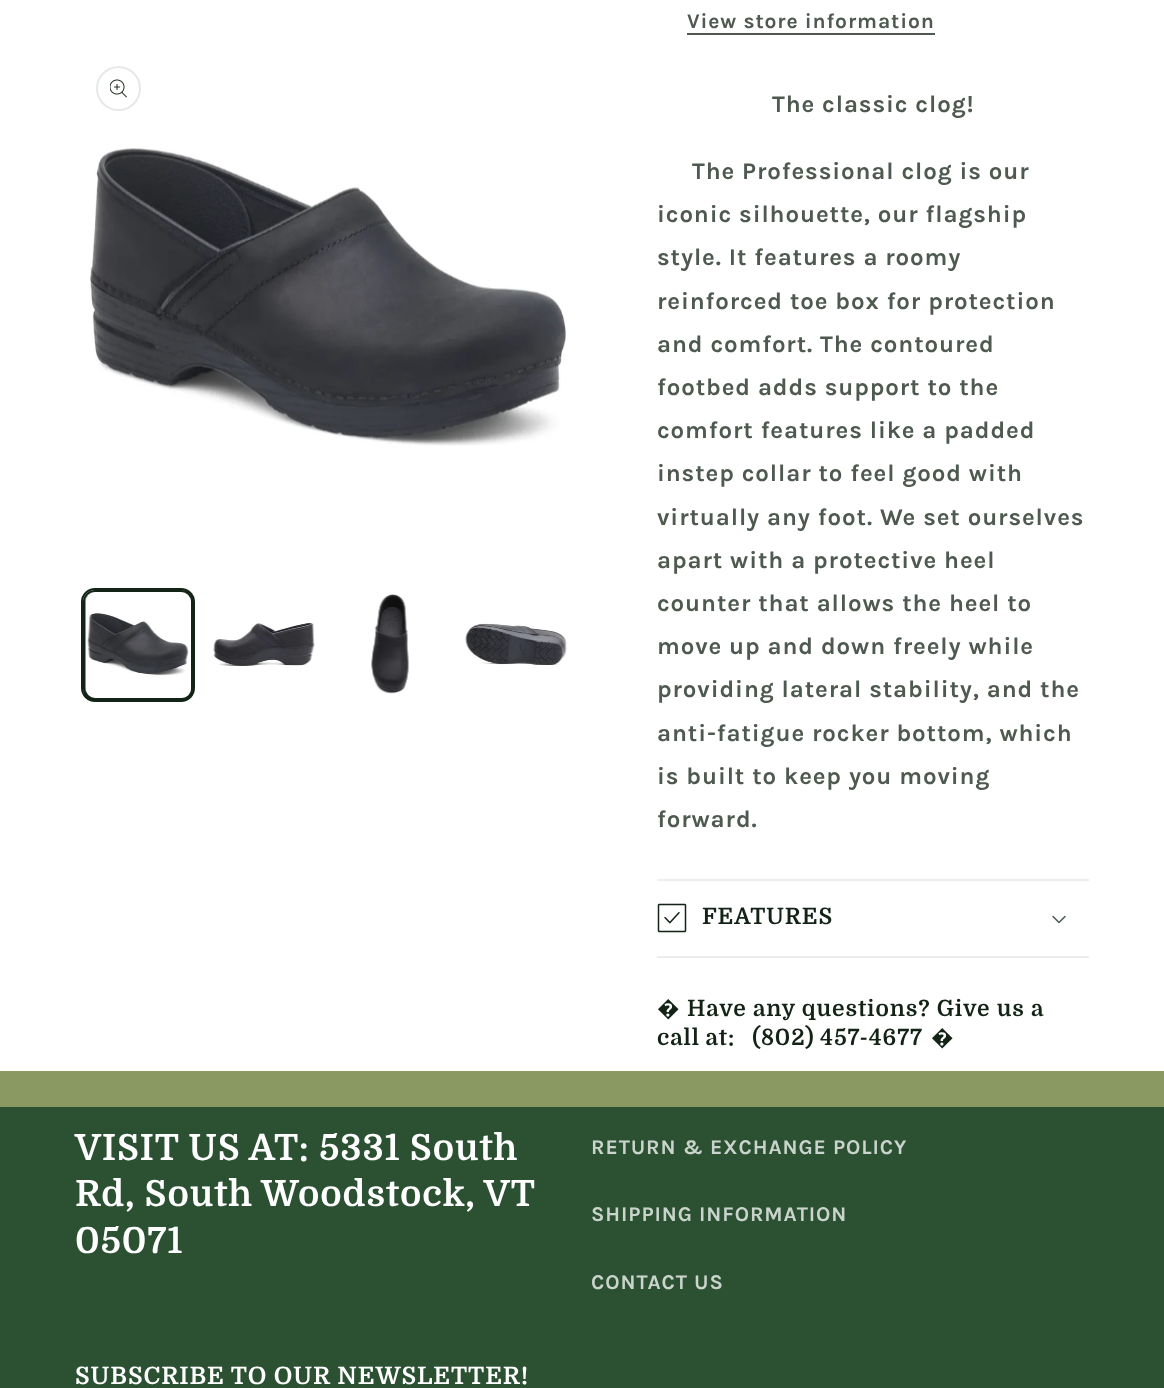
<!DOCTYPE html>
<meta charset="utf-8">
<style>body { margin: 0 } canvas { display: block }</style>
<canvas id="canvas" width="1164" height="1388"></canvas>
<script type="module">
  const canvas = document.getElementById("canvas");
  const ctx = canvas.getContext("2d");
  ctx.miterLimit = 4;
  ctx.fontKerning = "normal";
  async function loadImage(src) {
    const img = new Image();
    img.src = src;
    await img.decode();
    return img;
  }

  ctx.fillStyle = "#8a9962";
  ctx.fillRect(0, 0, 1164, 1388);
  ctx.fillStyle = "#ffffff";
  ctx.fillRect(0, 0, 1164, 1071);
  ctx.beginPath();
  ctx.arc(118.5, 88.5, 21.5, 0, Math.PI * 2);
  ctx.strokeStyle = "#e7e9e8";
  ctx.lineWidth = 2;
  ctx.stroke();
  ctx.drawImage(await loadImage("img1.png"), 110, 79, 17, 19);
  ctx.drawImage(await loadImage("img2.png"), 89, 148, 478, 298);
  ctx.beginPath();
  ctx.roundRect(82, 589, 112, 112, 13);
  ctx.strokeStyle = "#132316";
  ctx.stroke();
  ctx.beginPath();
  ctx.roundRect(84.5, 591.5, 108, 108, 10.5);
  ctx.lineWidth = 3;
  ctx.stroke();
  ctx.drawImage(await loadImage("img3.png"), 85, 592, 106, 105);
  ctx.drawImage(await loadImage("img4.png"), 213, 623, 102, 43);
  ctx.drawImage(await loadImage("img5.png"), 371, 594, 38, 100);
  ctx.drawImage(await loadImage("img6.png"), 465, 622, 102, 43);
  ctx.letterSpacing = "0.9px";
  ctx.font = "bold 21px Karla";
  ctx.fillStyle = "#4e5a50";
  ctx.fillText("View store information", 687, 28);
  ctx.fillRect(687, 33, 248, 2);
  ctx.font = "bold 24px Karla";
  ctx.fillText("The classic clog!", 772, 112);
  ctx.fillText("The Professional clog is our", 692, 179);
  ctx.fillText("iconic silhouette, our flagship", 657, 222);
  ctx.fillText("style. It features a roomy", 657, 265);
  ctx.fillText("reinforced toe box for protection", 657, 309);
  ctx.fillText("and comfort. The contoured", 657, 352);
  ctx.fillText("footbed adds support to the", 657, 395);
  ctx.fillText("comfort features like a padded", 657, 438);
  ctx.fillText("instep collar to feel good with", 657, 481);
  ctx.fillText("virtually any foot. We set ourselves", 657, 525);
  ctx.fillText("apart with a protective heel", 657, 568);
  ctx.fillText("counter that allows the heel to", 657, 611);
  ctx.fillText("move up and down freely while", 657, 654);
  ctx.fillText("providing lateral stability, and the", 657, 697);
  ctx.fillText("anti-fatigue rocker bottom, which", 657, 741);
  ctx.fillText("is built to keep you moving", 657, 784);
  ctx.fillText("forward.", 657, 827);
  ctx.fillStyle = "#ecedec";
  ctx.fillRect(657, 879, 432, 2);
  ctx.fillRect(657, 956, 432, 2);
  ctx.drawImage(await loadImage("img7.png"), 657, 903, 30, 30);
  ctx.font = "bold 22.5px Domine";
  ctx.fillStyle = "#132316";
  ctx.fillText("FEATURES", 702, 924);
  ctx.drawImage(await loadImage("img8.png"), 1052, 915, 14, 9);
  ctx.font = "bold 22.5px Noto Sans";
  ctx.fillText("�", 657, 1016);
  ctx.font = "bold 22.5px Domine";
  ctx.fillText("Have any questions? Give us a", 687, 1016);
  ctx.wordSpacing = "-0.5px";
  ctx.fillText("call at:   (802) 457-4677", 657, 1045);
  ctx.wordSpacing = "0px";
  ctx.font = "bold 22.5px Noto Sans";
  ctx.fillText("�", 931, 1045);
  ctx.fillStyle = "#2b5132";
  ctx.fillRect(0, 1107, 1164, 281);
  ctx.font = "bold 36px Domine";
  ctx.fillStyle = "#ffffff";
  ctx.fillText("VISIT US AT: 5331 South", 75, 1160);
  ctx.fillText("Rd, South Woodstock, VT", 75, 1206);
  ctx.fillText("05071", 75, 1253);
  ctx.font = "bold 21px Karla";
  ctx.fillStyle = "#cad4cc";
  ctx.fillText("RETURN & EXCHANGE POLICY", 591, 1154);
  ctx.fillText("SHIPPING INFORMATION", 591, 1221);
  ctx.fillText("CONTACT US", 591, 1289);
  ctx.font = "bold 24px Domine";
  ctx.fillStyle = "#ffffff";
  ctx.fillText("SUBSCRIBE TO OUR NEWSLETTER!", 75, 1384);
</script>
